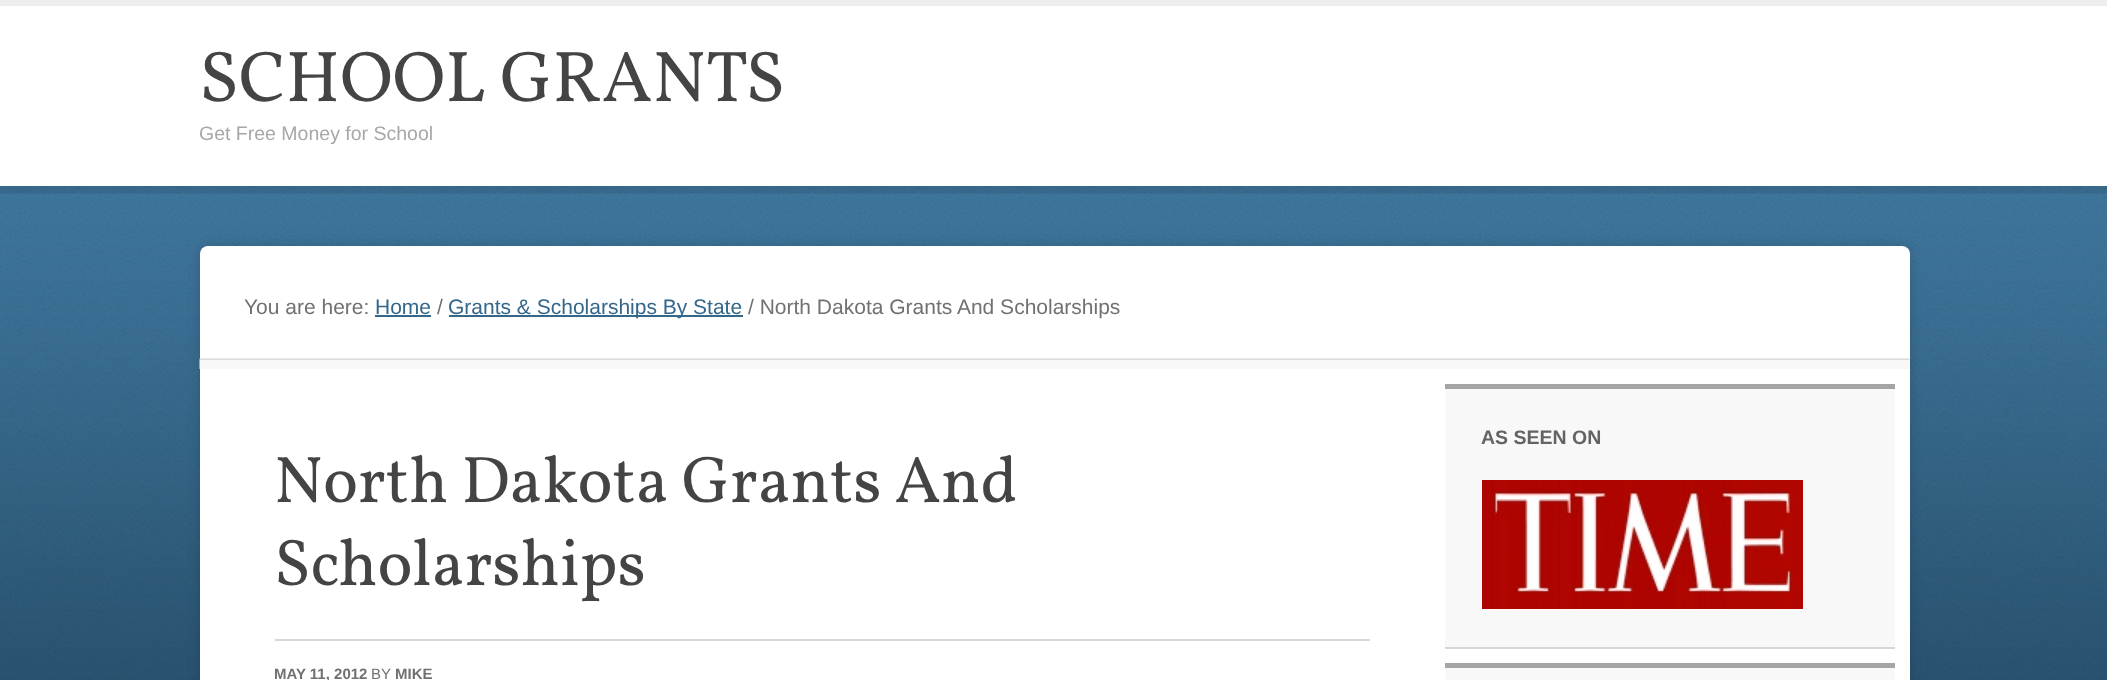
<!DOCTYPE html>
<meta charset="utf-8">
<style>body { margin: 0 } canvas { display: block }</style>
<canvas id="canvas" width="2107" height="680"></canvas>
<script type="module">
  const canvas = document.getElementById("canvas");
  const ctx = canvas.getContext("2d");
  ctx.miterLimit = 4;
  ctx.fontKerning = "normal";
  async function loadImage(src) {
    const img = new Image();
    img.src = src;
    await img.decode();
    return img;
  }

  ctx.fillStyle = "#ffffff";
  ctx.fillRect(0, 0, 2107, 680);
  ctx.fillStyle = "#eeeeee";
  ctx.fillRect(0, 0, 2107, 6);
  ctx.font = "72px Vollkorn";
  ctx.fillStyle = "#444444";
  ctx.fillText("SCHOOL GRANTS", 199, 101);
  ctx.save();
  ctx.beginPath();
  ctx.rect(200, 6, 1710, 143);
  ctx.clip();
  ctx.font = "19.5px Liberation Sans";
  ctx.fillStyle = "#a7a7a7";
  ctx.fillText("Get Free Money for School", 199, 140);
  ctx.restore();
  ctx.drawImage(await loadImage("img1.png"), 0, 186, 2107, 494);
  ctx.fillStyle = "rgba(0, 0, 0, 0.15)";
  ctx.filter = "blur(6px)";
  ctx.beginPath();
  ctx.roundRect(200, 246, 1710, 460, 8);
  ctx.fill();
  ctx.filter = "none";
  ctx.fillStyle = "#ffffff";
  ctx.beginPath();
  ctx.roundRect(200, 246, 1710, 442, 8);
  ctx.fill();
  ctx.drawImage(await loadImage("img2.png"), 199, 358, 1711, 11);
  ctx.font = "21px Liberation Sans";
  ctx.fillStyle = "#717171";
  ctx.fillText("You are here:", 244, 314);
  ctx.fillStyle = "#34678a";
  ctx.fillText("Home", 375, 314);
  ctx.fillRect(375, 315, 56, 2);
  ctx.fillStyle = "#717171";
  ctx.fillText("/", 437, 314);
  ctx.fillStyle = "#34678a";
  ctx.fillRect(449, 315, 294, 2);
  ctx.fillText("Grants & Scholarships By State", 448, 314);
  ctx.fillStyle = "#717171";
  ctx.fillText("/ North Dakota Grants And Scholarships", 748, 314);
  ctx.fillStyle = "#f8f8f8";
  ctx.fillRect(1445, 389, 450, 258);
  ctx.fillStyle = "#a5a5a5";
  ctx.fillRect(1445, 384, 450, 5);
  ctx.fillStyle = "#d6d6d6";
  ctx.fillRect(1445, 647, 450, 2);
  ctx.font = "bold 19.5px Liberation Sans";
  ctx.fillStyle = "#636363";
  ctx.fillText("AS SEEN ON", 1481, 444);
  ctx.drawImage(await loadImage("img3.png"), 1482, 480, 321, 129);
  ctx.fillStyle = "#f8f8f8";
  ctx.fillRect(1445, 668, 450, 12);
  ctx.fillStyle = "#a5a5a5";
  ctx.fillRect(1445, 663, 450, 5);
  ctx.font = "66px Vollkorn";
  ctx.fillStyle = "#444444";
  ctx.fillText("North Dakota Grants And", 274, 502);
  ctx.fillText("Scholarships", 274, 585);
  ctx.fillStyle = "#d6d6d6";
  ctx.fillRect(275, 639, 1095, 2);
  ctx.font = "bold 15px Liberation Sans";
  ctx.fillStyle = "#717171";
  ctx.fillText("MAY 11, 2012", 274, 679);
  ctx.font = "15px Liberation Sans";
  ctx.fillText("BY", 371, 679);
  ctx.font = "bold 15px Liberation Sans";
  ctx.fillText("MIKE", 395, 679);
</script>
